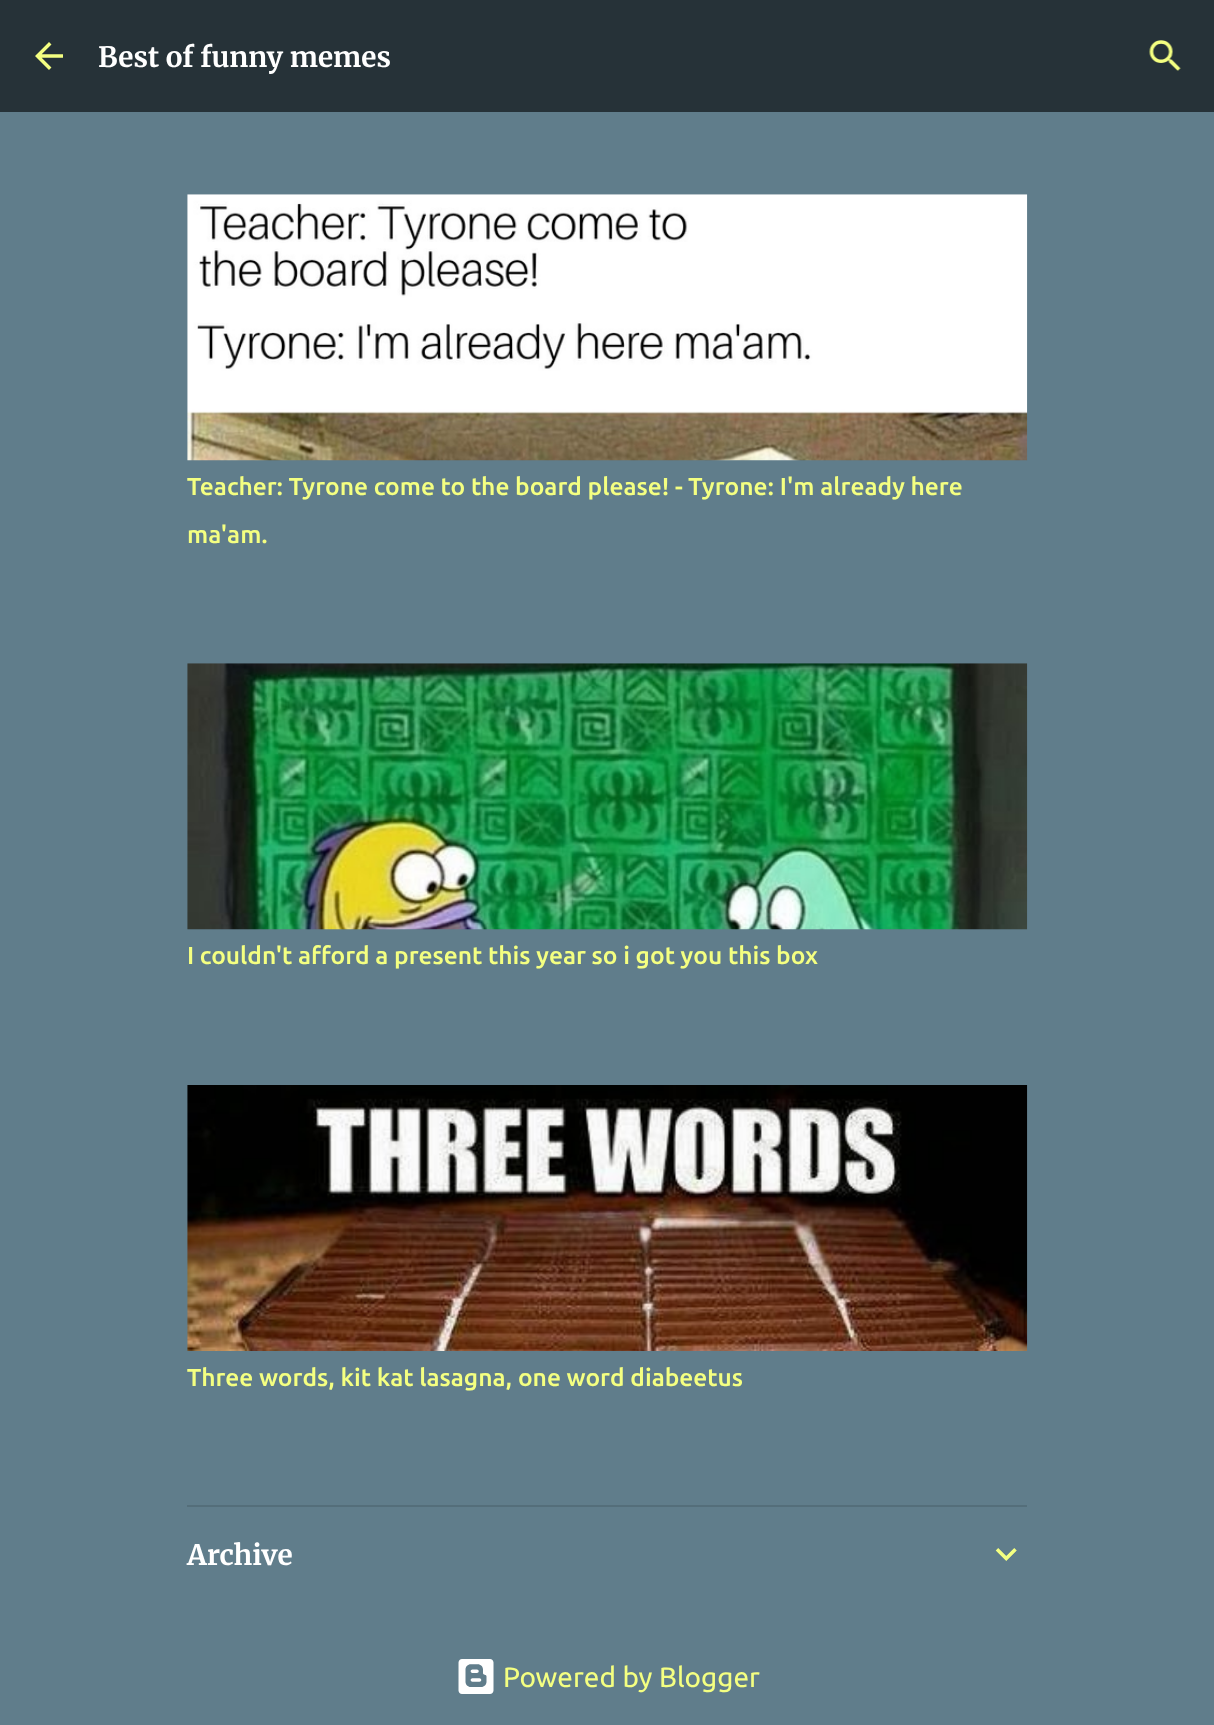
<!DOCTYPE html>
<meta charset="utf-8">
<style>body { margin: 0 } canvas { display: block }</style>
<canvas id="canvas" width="1214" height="1725"></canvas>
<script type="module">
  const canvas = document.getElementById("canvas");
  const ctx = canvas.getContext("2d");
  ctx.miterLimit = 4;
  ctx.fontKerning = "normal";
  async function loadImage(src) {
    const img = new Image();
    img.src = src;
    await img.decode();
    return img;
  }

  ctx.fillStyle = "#607d8b";
  ctx.fillRect(0, 0, 1214, 1725);
  ctx.fillStyle = "#263238";
  ctx.fillRect(0, 0, 1214, 112);
  ctx.drawImage(await loadImage("img1.png"), 35, 42, 28, 28);
  ctx.font = "bold 28px Merriweather";
  ctx.fillStyle = "#ffffff";
  ctx.fillText("Best of funny memes", 98, 67);
  ctx.drawImage(await loadImage("img2.png"), 1149, 40, 32, 31);
  ctx.drawImage(await loadImage("img3.png"), 187, 194, 841, 267);
  ctx.font = "500 24.5px Ubuntu";
  ctx.fillStyle = "#f4ff81";
  ctx.fillText("Teacher: Tyrone come to the board please! - Tyrone: I'm already here", 187, 495);
  ctx.fillText("ma'am.", 187, 543);
  ctx.drawImage(await loadImage("img4.png"), 187, 663, 841, 267);
  ctx.fillText("I couldn't afford a present this year so i got you this box", 187, 964);
  ctx.drawImage(await loadImage("img5.png"), 187, 1085, 841, 266);
  ctx.fillText("Three words, kit kat lasagna, one word diabeetus", 187, 1386);
  ctx.fillStyle = "#546e7a";
  ctx.fillRect(187, 1505, 840, 2);
  ctx.font = "bold 28px Merriweather";
  ctx.fillStyle = "#ffffff";
  ctx.fillText("Archive", 187, 1565);
  ctx.drawImage(await loadImage("img6.png"), 995, 1548, 22, 13);
  ctx.drawImage(await loadImage("img7.png"), 458, 1659, 36, 35);
  ctx.font = "28px Ubuntu";
  ctx.fillStyle = "#f4ff81";
  ctx.fillText("Powered by Blogger", 503, 1687);
</script>
